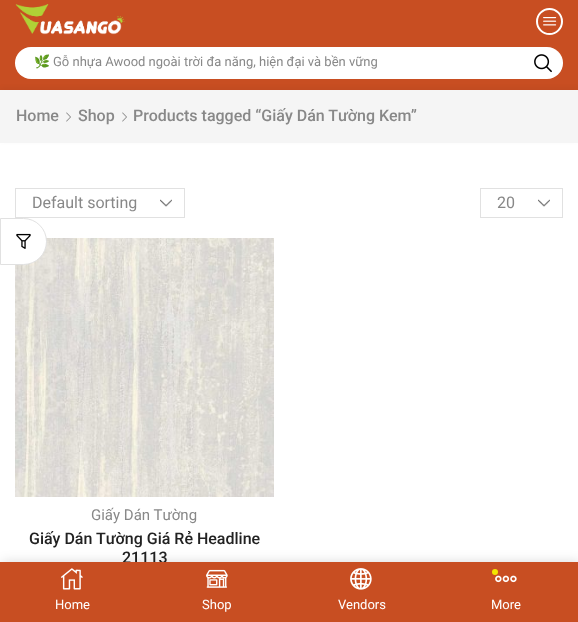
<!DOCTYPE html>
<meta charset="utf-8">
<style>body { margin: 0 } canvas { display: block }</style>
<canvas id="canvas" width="578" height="622"></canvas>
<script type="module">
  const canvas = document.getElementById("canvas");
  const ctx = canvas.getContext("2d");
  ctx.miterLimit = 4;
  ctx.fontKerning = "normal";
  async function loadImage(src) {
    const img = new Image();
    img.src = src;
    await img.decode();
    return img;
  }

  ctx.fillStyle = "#ffffff";
  ctx.fillRect(0, 0, 578, 622);
  ctx.fillStyle = "#c84e22";
  ctx.fillRect(0, 0, 578, 90);
  ctx.drawImage(await loadImage("img1.png"), 15, 4, 110, 31);
  ctx.beginPath();
  ctx.arc(549.5, 21.5, 12.5, 0, Math.PI * 2);
  ctx.strokeStyle = "#ffffff";
  ctx.lineWidth = 2;
  ctx.stroke();
  ctx.drawImage(await loadImage("img2.png"), 543, 17, 14, 9);
  ctx.fillStyle = "#ffffff";
  ctx.beginPath();
  ctx.roundRect(15, 47, 508, 32, [16, 0, 0, 16]);
  ctx.fill();
  ctx.font = "13px Noto Color Emoji";
  ctx.fillStyle = "#888888";
  ctx.fillText("🌿", 34, 66);
  ctx.font = "13px Roboto";
  ctx.fillText("Gỗ nhựa Awood ngoài trời đa năng, hiện đại và bền vững", 53, 66);
  ctx.fillStyle = "#ffffff";
  ctx.beginPath();
  ctx.roundRect(523, 47, 40, 32, [0, 16, 16, 0]);
  ctx.fill();
  ctx.drawImage(await loadImage("img3.png"), 534, 54, 18, 19);
  ctx.fillStyle = "rgba(0, 0, 0, 0.04)";
  ctx.filter = "blur(2.5px)";
  ctx.beginPath();
  ctx.rect(0, 88, 578, 53);
  ctx.fill();
  ctx.filter = "none";
  ctx.fillStyle = "#f5f5f5";
  ctx.fillRect(0, 90, 578, 53);
  ctx.font = "500 16px Roboto";
  ctx.fillStyle = "#888888";
  ctx.fillText("Home", 16, 121);
  ctx.drawImage(await loadImage("img4.png"), 66, 112, 5, 10);
  ctx.fillText("Shop", 78, 121);
  ctx.drawImage(await loadImage("img4.png"), 122, 112, 5, 10);
  ctx.fillText("Products tagged “Giấy Dán Tường Kem”", 133, 121);
  ctx.drawImage(await loadImage("img5.png"), 160, 199, 12, 8);
  ctx.strokeStyle = "#e1e1e1";
  ctx.lineWidth = 1;
  ctx.strokeRect(15.5, 188.5, 169, 29);
  ctx.font = "16px Roboto";
  ctx.fillText("Default sorting", 32, 208);
  ctx.drawImage(await loadImage("img6.png"), 538, 199, 12, 8);
  ctx.strokeRect(480.5, 188.5, 82, 29);
  ctx.fillText("20", 497, 208);
  ctx.drawImage(await loadImage("img8.png"), 15, 238, 259, 259);
  ctx.fillStyle = "#ffffff";
  ctx.beginPath();
  ctx.roundRect(0.5, 218.5, 46, 46, [0, 23, 23, 0]);
  ctx.fill();
  ctx.stroke();
  ctx.drawImage(await loadImage("img7.png"), 16, 233, 15, 16);
  ctx.font = "15px Roboto";
  ctx.fillStyle = "#888888";
  ctx.fillText("Giấy Dán Tường", 91, 520);
  ctx.font = "500 16px Roboto";
  ctx.fillStyle = "#222222";
  ctx.fillText("Giấy Dán Tường Giá Rẻ Headline", 29, 544);
  ctx.fillText("21113", 122, 563);
  ctx.fillStyle = "rgba(0, 0, 0, 0.15)";
  ctx.filter = "blur(6px)";
  ctx.beginPath();
  ctx.rect(2, 562, 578, 60);
  ctx.fill();
  ctx.filter = "none";
  ctx.fillStyle = "#c84e22";
  ctx.fillRect(0, 562, 578, 60);
  ctx.drawImage(await loadImage("img9.png"), 61, 568, 22, 22);
  ctx.font = "13px Roboto";
  ctx.fillStyle = "#ffffff";
  ctx.fillText("Home", 55, 609);
  ctx.drawImage(await loadImage("img10.png"), 206, 569, 22, 19);
  ctx.fillText("Shop", 202, 609);
  ctx.drawImage(await loadImage("img11.png"), 350, 568, 22, 22);
  ctx.fillText("Vendors", 338, 609);
  ctx.fillStyle = "#f3e500";
  ctx.beginPath();
  ctx.arc(495, 572, 3, 0, Math.PI * 2);
  ctx.fill();
  ctx.drawImage(await loadImage("img12.png"), 495, 575, 22, 8);
  ctx.fillStyle = "#ffffff";
  ctx.fillText("More", 491, 609);
</script>
